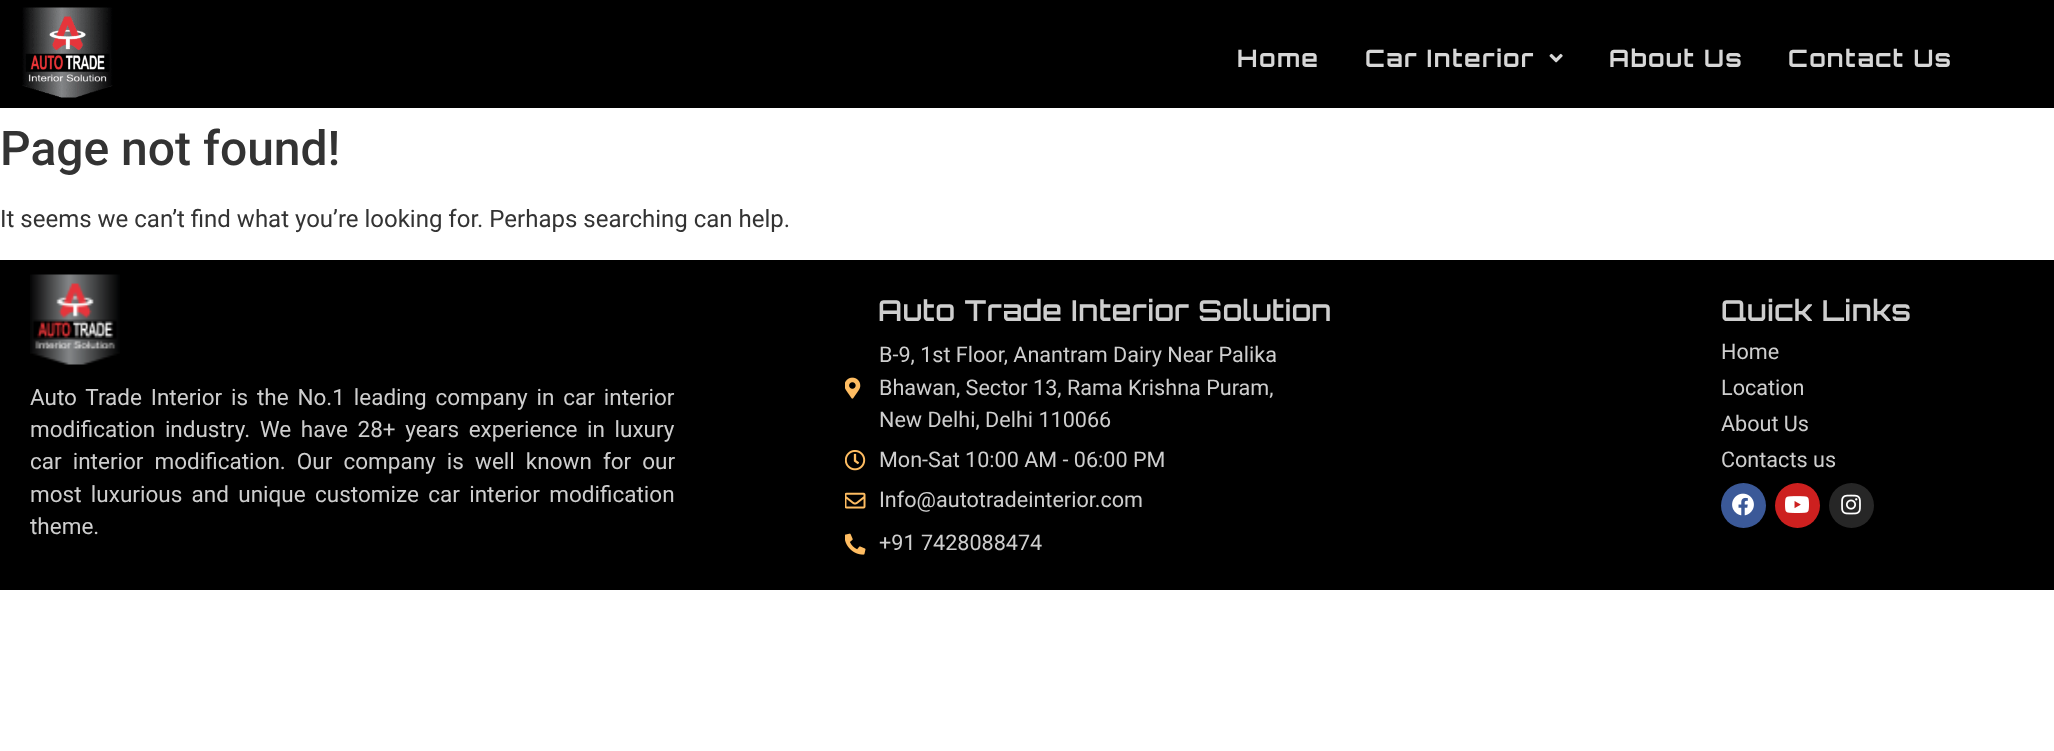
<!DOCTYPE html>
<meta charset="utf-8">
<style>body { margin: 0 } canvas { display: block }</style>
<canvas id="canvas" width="2054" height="751"></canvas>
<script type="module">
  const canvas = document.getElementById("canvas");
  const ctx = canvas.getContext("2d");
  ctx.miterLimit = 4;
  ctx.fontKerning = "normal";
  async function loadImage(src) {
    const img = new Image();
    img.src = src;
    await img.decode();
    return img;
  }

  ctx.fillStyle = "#ffffff";
  ctx.fillRect(0, 0, 2054, 751);
  ctx.fillStyle = "#000000";
  ctx.fillRect(0, 0, 2054, 108);
  ctx.drawImage(await loadImage("img1.png"), 22, 7, 91, 91);
  ctx.letterSpacing = "1.5px";
  ctx.font = "bold 24px Orbitron";
  ctx.fillStyle = "#d7d7d7";
  ctx.fillText("Home", 1237, 67);
  ctx.fillText("Car Interior", 1365, 67);
  ctx.drawImage(await loadImage("img2.png"), 1549, 53, 14, 10);
  ctx.fillText("About Us", 1609, 67);
  ctx.fillText("Contact Us", 1788, 67);
  ctx.letterSpacing = "0px";
  ctx.font = "500 48px Roboto";
  ctx.fillStyle = "#333333";
  ctx.fillText("Page not found!", 0, 165);
  ctx.font = "24px Roboto";
  ctx.fillText("It seems we can’t find what you’re looking for. Perhaps searching can help.", 0, 227);
  ctx.fillStyle = "#000000";
  ctx.fillRect(0, 260, 2054, 330);
  ctx.drawImage(await loadImage("img3.png"), 30, 274, 90, 91);
  ctx.wordSpacing = "3.25px";
  ctx.font = "22.5px Roboto";
  ctx.fillStyle = "#cecece";
  ctx.fillText("Auto Trade Interior is the No.1 leading company in car interior", 30, 405);
  ctx.wordSpacing = "4px";
  ctx.fillText("modification industry. We have 28+ years experience in luxury", 30, 437);
  ctx.wordSpacing = "5.5px";
  ctx.fillText("car interior modification. Our company is well known for our", 30, 469);
  ctx.wordSpacing = "3.75px";
  ctx.fillText("most luxurious and unique customize car interior modification", 30, 502);
  ctx.wordSpacing = "0px";
  ctx.fillText("theme.", 30, 534);
  ctx.letterSpacing = "0.45px";
  ctx.font = "600 28.75px Orbitron";
  ctx.fillText("Auto Trade Interior Solution", 878, 321);
  ctx.drawImage(await loadImage("img4.png"), 845, 377, 16, 22);
  ctx.letterSpacing = "0px";
  ctx.font = "21.6px Roboto";
  ctx.fillText("B-9, 1st Floor, Anantram Dairy Near Palika", 879, 362);
  ctx.fillText("Bhawan, Sector 13, Rama Krishna Puram,", 879, 395);
  ctx.fillText("New Delhi, Delhi 110066", 879, 427);
  ctx.drawImage(await loadImage("img5.png"), 845, 450, 21, 21);
  ctx.fillText("Mon-Sat 10:00 AM - 06:00 PM", 879, 467);
  ctx.drawImage(await loadImage("img6.png"), 845, 492, 21, 17);
  ctx.fillText("Info@autotradeinterior.com", 879, 507);
  ctx.drawImage(await loadImage("img7.png"), 845, 533, 21, 22);
  ctx.fillText("+91 7428088474", 879, 550);
  ctx.letterSpacing = "0.45px";
  ctx.font = "600 28.75px Orbitron";
  ctx.fillText("Quick Links", 1721, 321);
  ctx.letterSpacing = "0px";
  ctx.font = "21.6px Roboto";
  ctx.fillText("Home", 1721, 359);
  ctx.fillText("Location", 1721, 395);
  ctx.fillText("About Us", 1721, 431);
  ctx.fillText("Contacts us", 1721, 467);
  ctx.fillStyle = "#3b5998";
  ctx.beginPath();
  ctx.arc(1743.5, 505.5, 22.5, 0, Math.PI * 2);
  ctx.fill();
  ctx.drawImage(await loadImage("img8.png"), 1732, 493, 22, 23);
  ctx.fillStyle = "#cd201f";
  ctx.beginPath();
  ctx.arc(1797.5, 505.5, 22.5, 0, Math.PI * 2);
  ctx.fill();
  ctx.drawImage(await loadImage("img9.png"), 1785, 496, 24, 17);
  ctx.fillStyle = "#262626";
  ctx.beginPath();
  ctx.arc(1851.5, 505.5, 22.5, 0, Math.PI * 2);
  ctx.fill();
  ctx.drawImage(await loadImage("img10.png"), 1841, 494, 20, 21);
</script>
